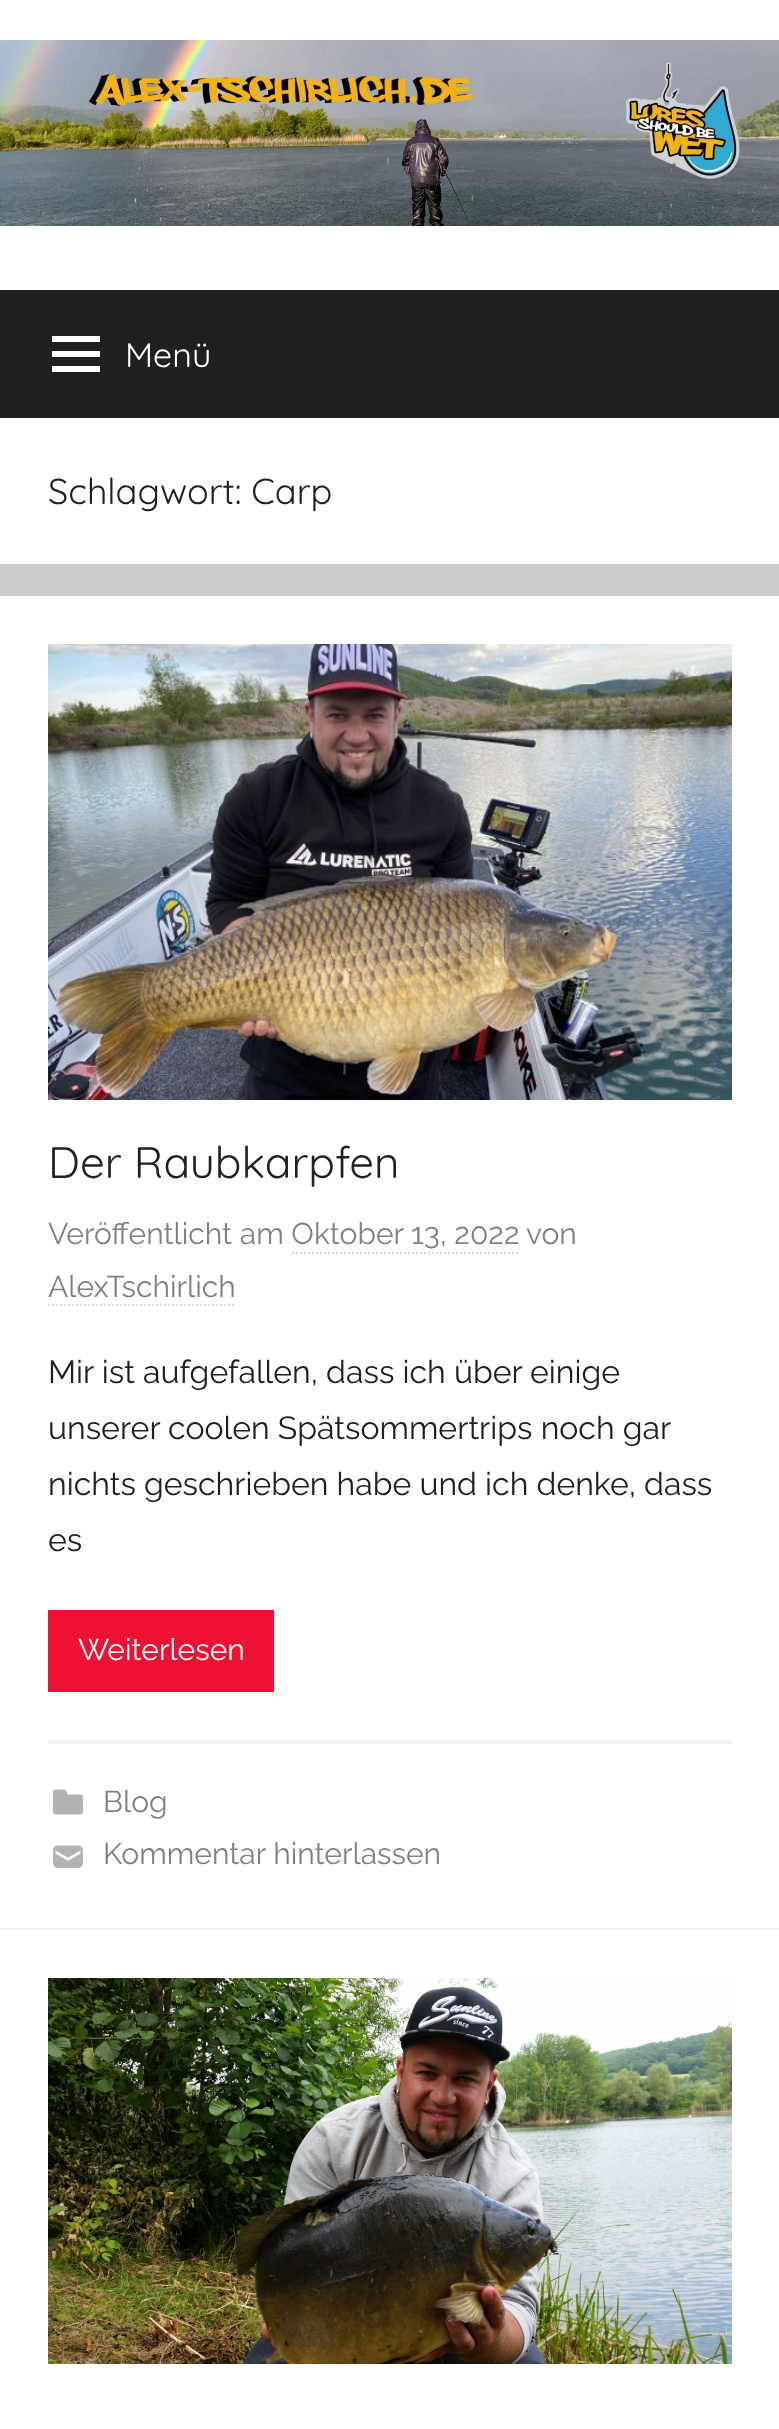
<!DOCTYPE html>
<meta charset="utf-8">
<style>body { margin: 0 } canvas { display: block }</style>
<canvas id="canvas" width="779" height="2429"></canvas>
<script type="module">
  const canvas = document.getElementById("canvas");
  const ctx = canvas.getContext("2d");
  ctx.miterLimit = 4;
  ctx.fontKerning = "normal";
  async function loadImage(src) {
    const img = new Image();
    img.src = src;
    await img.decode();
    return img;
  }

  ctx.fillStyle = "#cccccc";
  ctx.fillRect(0, 0, 779, 2429);
  ctx.fillStyle = "#ffffff";
  ctx.fillRect(0, 0, 779, 290);
  ctx.drawImage(await loadImage("img1.png"), 0, 40, 779, 186);
  ctx.fillStyle = "#202020";
  ctx.fillRect(0, 290, 779, 128);
  ctx.drawImage(await loadImage("img2.png"), 52, 336, 48, 36);
  ctx.font = "34px Quicksand";
  ctx.fillStyle = "#ffffff";
  ctx.fillText("Menü", 125, 367);
  ctx.fillRect(0, 418, 779, 146);
  ctx.font = "36px Quicksand";
  ctx.fillStyle = "#202020";
  ctx.fillText("Schlagwort: Carp", 48, 504);
  ctx.fillStyle = "#ffffff";
  ctx.fillRect(0, 596, 779, 1332);
  ctx.fillStyle = "#f2f2f2";
  ctx.fillRect(0, 1928, 779, 2);
  ctx.drawImage(await loadImage("img3.png"), 48, 644, 684, 456);
  ctx.font = "44px Quicksand";
  ctx.fillStyle = "#202020";
  ctx.fillText("Der Raubkarpfen", 48, 1178);
  ctx.font = "30px Raleway";
  ctx.fillStyle = "#808080";
  ctx.fillText("Veröffentlicht am Oktober 13, 2022", 48, 1244);
  ctx.beginPath();
  ctx.moveTo(292, 1253);
  ctx.lineTo(520, 1253);
  ctx.strokeStyle = "#d9d9d9";
  ctx.lineWidth = 2;
  ctx.setLineDash([2, 2]);
  ctx.stroke();
  ctx.fillText("von", 526, 1244);
  ctx.fillText("AlexTschirlich", 48, 1297);
  ctx.beginPath();
  ctx.moveTo(48, 1305);
  ctx.lineTo(236, 1305);
  ctx.stroke();
  ctx.font = "32px Raleway";
  ctx.fillStyle = "#202020";
  ctx.fillText("Mir ist aufgefallen, dass ich über einige", 48, 1383);
  ctx.fillText("unserer coolen Spätsommertrips noch gar", 48, 1439);
  ctx.fillText("nichts geschrieben habe und ich denke, dass", 48, 1495);
  ctx.fillText("es", 48, 1551);
  ctx.fillStyle = "#ee1133";
  ctx.fillRect(48, 1610, 226, 82);
  ctx.font = "30px Raleway";
  ctx.fillStyle = "#ffffff";
  ctx.fillText("Weiterlesen", 78, 1660);
  ctx.fillStyle = "#f2f2f2";
  ctx.fillRect(48, 1740, 684, 4);
  ctx.drawImage(await loadImage("img4.png"), 53, 1789, 30, 26);
  ctx.fillStyle = "#808080";
  ctx.fillText("Blog", 103, 1812);
  ctx.drawImage(await loadImage("img5.png"), 53, 1845, 30, 23);
  ctx.fillText("Kommentar hinterlassen", 103, 1864);
  ctx.fillStyle = "#ffffff";
  ctx.fillRect(0, 1930, 779, 499);
  ctx.drawImage(await loadImage("img6.png"), 48, 1978, 684, 386);
</script>
